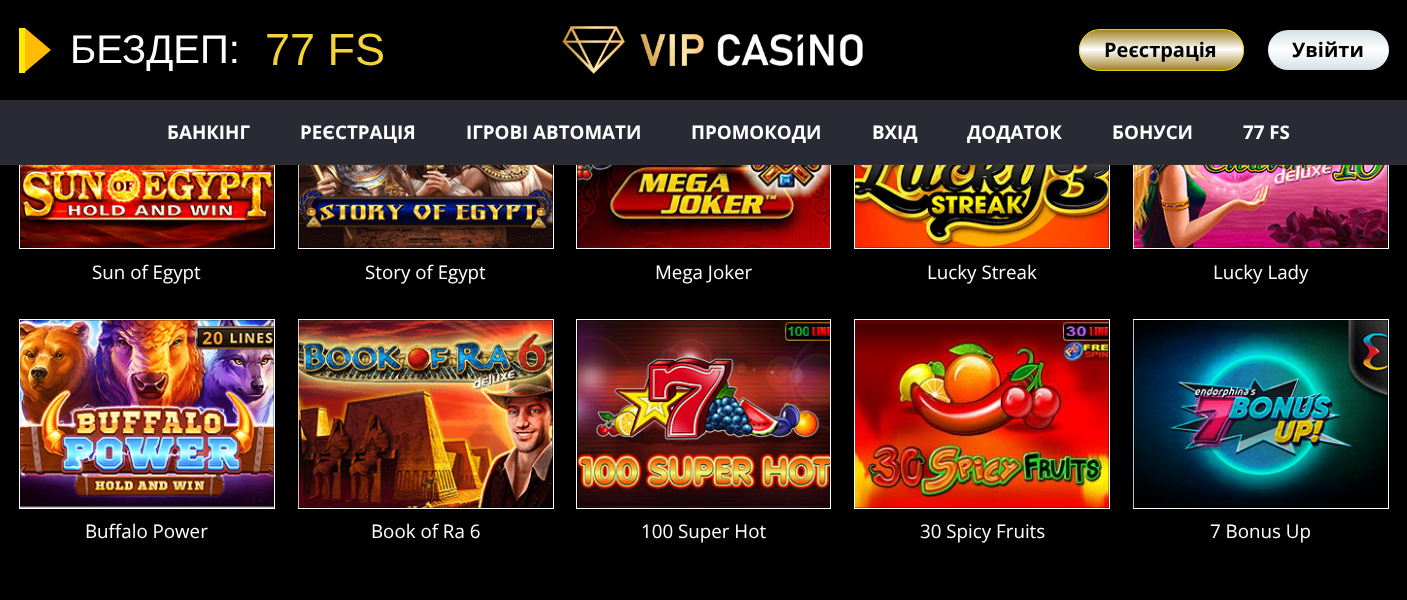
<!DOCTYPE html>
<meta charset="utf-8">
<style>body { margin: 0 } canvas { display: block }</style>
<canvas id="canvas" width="1407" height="600"></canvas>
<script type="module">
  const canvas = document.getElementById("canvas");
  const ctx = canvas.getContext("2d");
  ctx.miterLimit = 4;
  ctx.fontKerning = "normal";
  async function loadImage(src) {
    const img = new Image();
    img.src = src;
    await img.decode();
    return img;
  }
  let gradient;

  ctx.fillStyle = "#000000";
  ctx.fillRect(0, 0, 1407, 600);
  ctx.strokeStyle = "#ffffff";
  ctx.strokeRect(19.5, 59.5, 255, 189);
  ctx.strokeRect(298.5, 59.5, 255, 189);
  ctx.strokeRect(576.5, 59.5, 254, 189);
  ctx.strokeRect(854.5, 59.5, 255, 189);
  ctx.strokeRect(1133.5, 59.5, 255, 189);
  ctx.fillRect(19, 59, 1370, 41);
  ctx.fillStyle = "#333333";
  ctx.fillRect(0, 164, 1407, 1);
  ctx.fillStyle = "#ffeb00";
  ctx.fillRect(19, 28, 6, 45);
  ctx.fillStyle = "#ffbc00";
  ctx.beginPath();
  ctx.moveTo(25, 72);
  ctx.lineTo(25, 28);
  ctx.lineTo(51, 50);
  ctx.closePath();
  ctx.fill();
  ctx.font = "40px Liberation Sans";
  ctx.fillStyle = "#ffffff";
  ctx.fillText("БЕЗДЕП:", 70, 63);
  ctx.font = "45px Liberation Sans";
  ctx.fillStyle = "#f3d338";
  ctx.fillText("77 FS", 265, 65);
  ctx.drawImage(await loadImage("img1.png"), 562, 26, 301, 48);
  ctx.save();
  ctx.beginPath();
  ctx.roundRect(1079, 29, 165, 42, 21);
  ctx.clip();
  gradient = ctx.createLinearGradient(1161, 30, 1161, 70);
  gradient.addColorStop(0, "#a18326");
  gradient.addColorStop(0.49, "#ffffff");
  gradient.addColorStop(1, "#a18326");
  ctx.fillStyle = gradient;
  ctx.fillRect(1079, 30, 165, 40);
  ctx.restore();
  ctx.beginPath();
  ctx.roundRect(1079.5, 29.5, 164, 41, 20.5);
  ctx.strokeStyle = "#ead400";
  ctx.stroke();
  ctx.font = "bold 20px Open Sans";
  ctx.fillStyle = "#000000";
  ctx.fillText("Реєстрація", 1104, 57);
  gradient = ctx.createLinearGradient(1328, 30, 1328, 70);
  gradient.addColorStop(0, "#d4e1e6");
  gradient.addColorStop(0.49, "#ffffff");
  gradient.addColorStop(1, "#d4e1e5");
  ctx.fillStyle = gradient;
  ctx.beginPath();
  ctx.roundRect(1268, 30, 121, 40, 20);
  ctx.fill();
  ctx.fillStyle = "#000000";
  ctx.fillText("Увійти", 1292, 57);
  ctx.fillStyle = "#292a34";
  ctx.fillRect(0, 100, 1407, 64);
  ctx.font = "bold 18.75px Open Sans";
  ctx.fillStyle = "#ffffff";
  ctx.fillText("БАНКІНГ", 167, 139);
  ctx.fillText("РЕЄСТРАЦІЯ", 300, 139);
  ctx.fillText("ІГРОВІ АВТОМАТИ", 466, 139);
  ctx.fillText("ПРОМОКОДИ", 691, 139);
  ctx.fillText("ВХІД", 872, 139);
  ctx.fillText("ДОДАТОК", 967, 139);
  ctx.fillText("БОНУСИ", 1112, 139);
  ctx.fillText("77 FS", 1243, 139);
  ctx.drawImage(await loadImage("img2.png"), 20, 165, 254, 83);
  ctx.font = "18.75px Open Sans";
  ctx.fillText("Sun of Egypt", 92, 279);
  ctx.drawImage(await loadImage("img3.png"), 298, 165, 255, 83);
  ctx.fillText("Story of Egypt", 365, 279);
  ctx.drawImage(await loadImage("img4.png"), 577, 165, 253, 83);
  ctx.fillText("Mega Joker", 655, 279);
  ctx.drawImage(await loadImage("img5.png"), 855, 165, 254, 83);
  ctx.fillText("Lucky Streak", 927, 279);
  ctx.drawImage(await loadImage("img6.png"), 1133, 165, 255, 83);
  ctx.fillText("Lucky Lady", 1213, 279);
  ctx.strokeStyle = "#ffffff";
  ctx.strokeRect(19.5, 319.5, 255, 189);
  ctx.drawImage(await loadImage("img7.png"), 20, 320, 254, 188);
  ctx.fillText("Buffalo Power", 85, 538);
  ctx.strokeRect(298.5, 319.5, 255, 189);
  ctx.drawImage(await loadImage("img8.png"), 298, 320, 255, 188);
  ctx.fillText("Book of Ra 6", 371, 538);
  ctx.strokeRect(576.5, 319.5, 254, 189);
  ctx.drawImage(await loadImage("img9.png"), 577, 320, 253, 188);
  ctx.fillText("100 Super Hot", 641, 538);
  ctx.strokeRect(854.5, 319.5, 255, 189);
  ctx.drawImage(await loadImage("img10.png"), 855, 320, 254, 188);
  ctx.fillText("30 Spicy Fruits", 920, 538);
  ctx.strokeRect(1133.5, 319.5, 255, 189);
  ctx.drawImage(await loadImage("img11.png"), 1133, 320, 255, 188);
  ctx.fillText("7 Bonus Up", 1210, 538);
</script>
